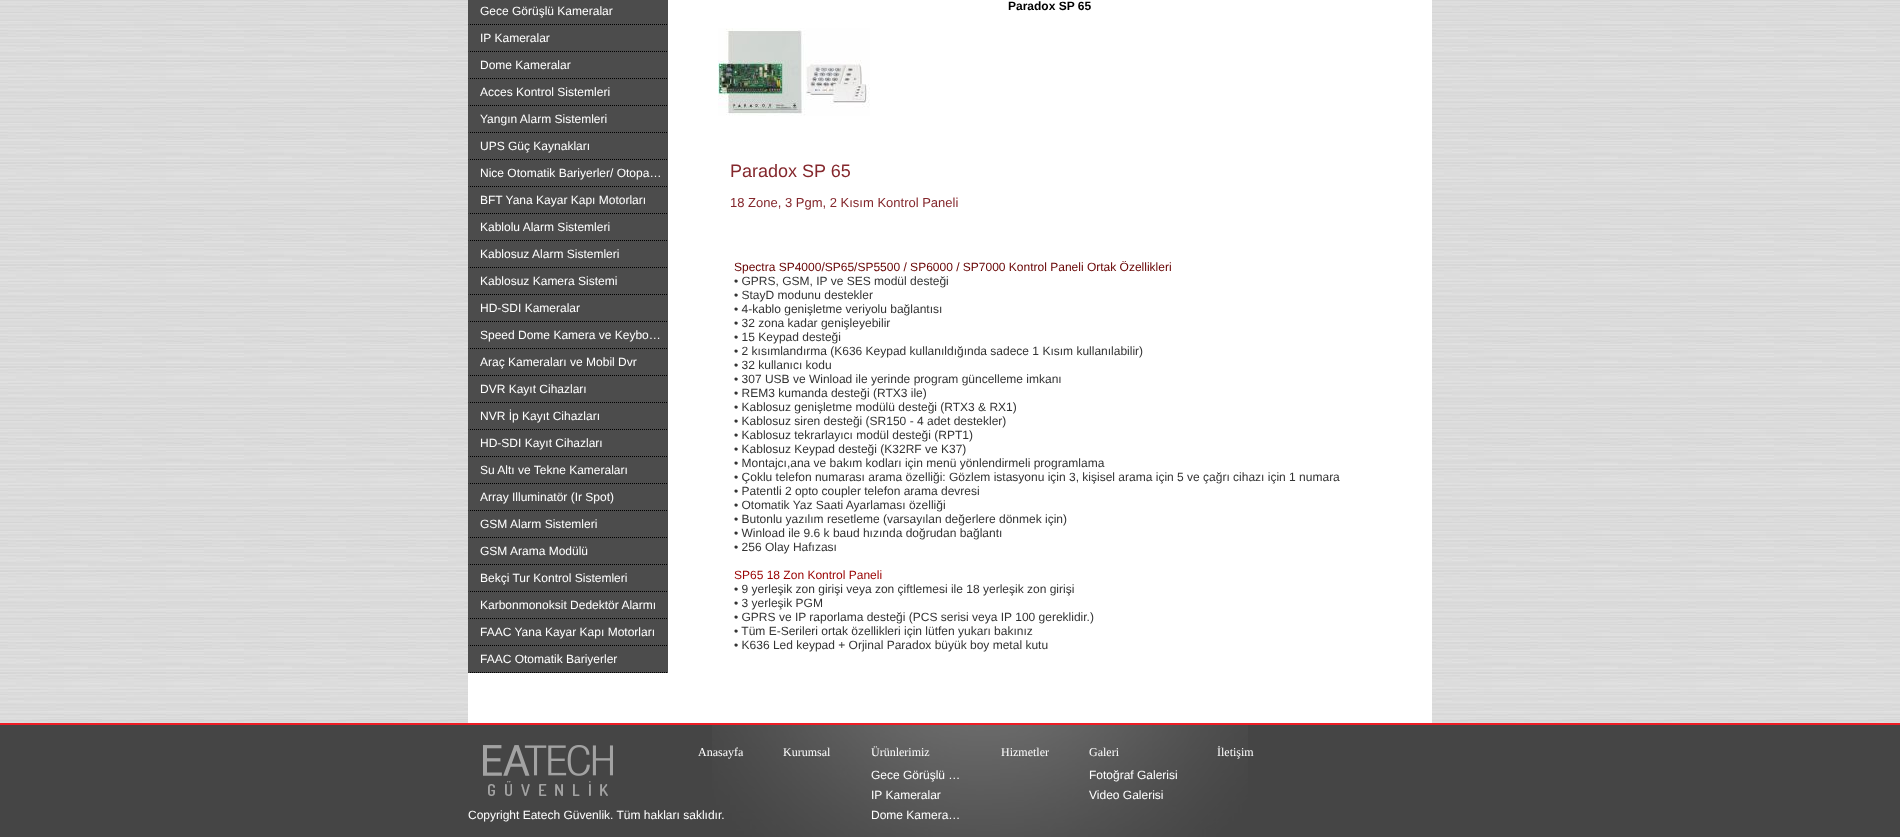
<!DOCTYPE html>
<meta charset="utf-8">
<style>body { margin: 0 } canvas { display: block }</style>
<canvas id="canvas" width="1900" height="837"></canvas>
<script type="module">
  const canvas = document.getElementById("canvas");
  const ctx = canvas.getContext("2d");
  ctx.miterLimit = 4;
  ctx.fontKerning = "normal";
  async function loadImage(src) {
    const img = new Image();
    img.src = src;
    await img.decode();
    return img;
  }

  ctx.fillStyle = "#ffffff";
  ctx.fillRect(0, 0, 1900, 837);
  ctx.drawImage(await loadImage("img1.png"), 0, 0, 1900, 723);
  ctx.fillRect(468, 0, 964, 723);
  ctx.fillStyle = "#4c4c4c";
  ctx.fillRect(469, 0, 199, 673);
  ctx.beginPath();
  ctx.moveTo(468, 24.5);
  ctx.lineTo(668, 24.5);
  ctx.strokeStyle = "#000000";
  ctx.setLineDash([1, 1]);
  ctx.stroke();
  ctx.beginPath();
  ctx.moveTo(468, 25);
  ctx.lineTo(468, -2);
  ctx.lineTo(470, -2);
  ctx.lineTo(470, 24);
  ctx.closePath();
  ctx.fill();
  ctx.font = "12px Liberation Sans";
  ctx.fillStyle = "#ffffff";
  ctx.fillText("Gece Görüşlü Kameralar", 480, 15);
  ctx.beginPath();
  ctx.moveTo(468, 51.5);
  ctx.lineTo(668, 51.5);
  ctx.stroke();
  ctx.fillStyle = "#4c4c4c";
  ctx.beginPath();
  ctx.moveTo(468, 52);
  ctx.lineTo(468, 25);
  ctx.lineTo(470, 25);
  ctx.lineTo(470, 51);
  ctx.closePath();
  ctx.fill();
  ctx.fillStyle = "#ffffff";
  ctx.fillText("IP Kameralar", 480, 42);
  ctx.beginPath();
  ctx.moveTo(468, 78.5);
  ctx.lineTo(668, 78.5);
  ctx.stroke();
  ctx.fillStyle = "#4c4c4c";
  ctx.beginPath();
  ctx.moveTo(468, 79);
  ctx.lineTo(468, 52);
  ctx.lineTo(470, 52);
  ctx.lineTo(470, 78);
  ctx.closePath();
  ctx.fill();
  ctx.fillStyle = "#ffffff";
  ctx.fillText("Dome Kameralar", 480, 69);
  ctx.beginPath();
  ctx.moveTo(468, 105.5);
  ctx.lineTo(668, 105.5);
  ctx.stroke();
  ctx.fillStyle = "#4c4c4c";
  ctx.beginPath();
  ctx.moveTo(468, 106);
  ctx.lineTo(468, 79);
  ctx.lineTo(470, 79);
  ctx.lineTo(470, 105);
  ctx.closePath();
  ctx.fill();
  ctx.fillStyle = "#ffffff";
  ctx.fillText("Acces Kontrol Sistemleri", 480, 96);
  ctx.beginPath();
  ctx.moveTo(468, 132.5);
  ctx.lineTo(668, 132.5);
  ctx.stroke();
  ctx.fillStyle = "#4c4c4c";
  ctx.beginPath();
  ctx.moveTo(468, 133);
  ctx.lineTo(468, 106);
  ctx.lineTo(470, 106);
  ctx.lineTo(470, 132);
  ctx.closePath();
  ctx.fill();
  ctx.fillStyle = "#ffffff";
  ctx.fillText("Yangın Alarm Sistemleri", 480, 123);
  ctx.beginPath();
  ctx.moveTo(468, 159.5);
  ctx.lineTo(668, 159.5);
  ctx.stroke();
  ctx.fillStyle = "#4c4c4c";
  ctx.beginPath();
  ctx.moveTo(468, 160);
  ctx.lineTo(468, 133);
  ctx.lineTo(470, 133);
  ctx.lineTo(470, 159);
  ctx.closePath();
  ctx.fill();
  ctx.fillStyle = "#ffffff";
  ctx.fillText("UPS Güç Kaynakları", 480, 150);
  ctx.beginPath();
  ctx.moveTo(468, 186.5);
  ctx.lineTo(668, 186.5);
  ctx.stroke();
  ctx.fillStyle = "#4c4c4c";
  ctx.beginPath();
  ctx.moveTo(468, 187);
  ctx.lineTo(468, 160);
  ctx.lineTo(470, 160);
  ctx.lineTo(470, 186);
  ctx.closePath();
  ctx.fill();
  ctx.fillStyle = "#ffffff";
  ctx.fillText("Nice Otomatik Bariyerler/ Otopa…", 480, 177);
  ctx.beginPath();
  ctx.moveTo(468, 213.5);
  ctx.lineTo(668, 213.5);
  ctx.stroke();
  ctx.fillStyle = "#4c4c4c";
  ctx.beginPath();
  ctx.moveTo(468, 214);
  ctx.lineTo(468, 187);
  ctx.lineTo(470, 187);
  ctx.lineTo(470, 213);
  ctx.closePath();
  ctx.fill();
  ctx.fillStyle = "#ffffff";
  ctx.fillText("BFT Yana Kayar Kapı Motorları", 480, 204);
  ctx.beginPath();
  ctx.moveTo(468, 240.5);
  ctx.lineTo(668, 240.5);
  ctx.stroke();
  ctx.fillStyle = "#4c4c4c";
  ctx.beginPath();
  ctx.moveTo(468, 241);
  ctx.lineTo(468, 214);
  ctx.lineTo(470, 214);
  ctx.lineTo(470, 240);
  ctx.closePath();
  ctx.fill();
  ctx.fillStyle = "#ffffff";
  ctx.fillText("Kablolu Alarm Sistemleri", 480, 231);
  ctx.beginPath();
  ctx.moveTo(468, 267.5);
  ctx.lineTo(668, 267.5);
  ctx.stroke();
  ctx.fillStyle = "#4c4c4c";
  ctx.beginPath();
  ctx.moveTo(468, 268);
  ctx.lineTo(468, 241);
  ctx.lineTo(470, 241);
  ctx.lineTo(470, 267);
  ctx.closePath();
  ctx.fill();
  ctx.fillStyle = "#ffffff";
  ctx.fillText("Kablosuz Alarm Sistemleri", 480, 258);
  ctx.beginPath();
  ctx.moveTo(468, 294.5);
  ctx.lineTo(668, 294.5);
  ctx.stroke();
  ctx.fillStyle = "#4c4c4c";
  ctx.beginPath();
  ctx.moveTo(468, 295);
  ctx.lineTo(468, 268);
  ctx.lineTo(470, 268);
  ctx.lineTo(470, 294);
  ctx.closePath();
  ctx.fill();
  ctx.fillStyle = "#ffffff";
  ctx.fillText("Kablosuz Kamera Sistemi", 480, 285);
  ctx.beginPath();
  ctx.moveTo(468, 321.5);
  ctx.lineTo(668, 321.5);
  ctx.stroke();
  ctx.fillStyle = "#4c4c4c";
  ctx.beginPath();
  ctx.moveTo(468, 322);
  ctx.lineTo(468, 295);
  ctx.lineTo(470, 295);
  ctx.lineTo(470, 321);
  ctx.closePath();
  ctx.fill();
  ctx.fillStyle = "#ffffff";
  ctx.fillText("HD-SDI Kameralar", 480, 312);
  ctx.beginPath();
  ctx.moveTo(468, 348.5);
  ctx.lineTo(668, 348.5);
  ctx.stroke();
  ctx.fillStyle = "#4c4c4c";
  ctx.beginPath();
  ctx.moveTo(468, 349);
  ctx.lineTo(468, 322);
  ctx.lineTo(470, 322);
  ctx.lineTo(470, 348);
  ctx.closePath();
  ctx.fill();
  ctx.fillStyle = "#ffffff";
  ctx.fillText("Speed Dome Kamera ve Keybo…", 480, 339);
  ctx.beginPath();
  ctx.moveTo(468, 375.5);
  ctx.lineTo(668, 375.5);
  ctx.stroke();
  ctx.fillStyle = "#4c4c4c";
  ctx.beginPath();
  ctx.moveTo(468, 376);
  ctx.lineTo(468, 349);
  ctx.lineTo(470, 349);
  ctx.lineTo(470, 375);
  ctx.closePath();
  ctx.fill();
  ctx.fillStyle = "#ffffff";
  ctx.fillText("Araç Kameraları ve Mobil Dvr", 480, 366);
  ctx.beginPath();
  ctx.moveTo(468, 402.5);
  ctx.lineTo(668, 402.5);
  ctx.stroke();
  ctx.fillStyle = "#4c4c4c";
  ctx.beginPath();
  ctx.moveTo(468, 403);
  ctx.lineTo(468, 376);
  ctx.lineTo(470, 376);
  ctx.lineTo(470, 402);
  ctx.closePath();
  ctx.fill();
  ctx.fillStyle = "#ffffff";
  ctx.fillText("DVR Kayıt Cihazları", 480, 393);
  ctx.beginPath();
  ctx.moveTo(468, 429.5);
  ctx.lineTo(668, 429.5);
  ctx.stroke();
  ctx.fillStyle = "#4c4c4c";
  ctx.beginPath();
  ctx.moveTo(468, 430);
  ctx.lineTo(468, 403);
  ctx.lineTo(470, 403);
  ctx.lineTo(470, 429);
  ctx.closePath();
  ctx.fill();
  ctx.fillStyle = "#ffffff";
  ctx.fillText("NVR İp Kayıt Cihazları", 480, 420);
  ctx.beginPath();
  ctx.moveTo(468, 456.5);
  ctx.lineTo(668, 456.5);
  ctx.stroke();
  ctx.fillStyle = "#4c4c4c";
  ctx.beginPath();
  ctx.moveTo(468, 457);
  ctx.lineTo(468, 430);
  ctx.lineTo(470, 430);
  ctx.lineTo(470, 456);
  ctx.closePath();
  ctx.fill();
  ctx.fillStyle = "#ffffff";
  ctx.fillText("HD-SDI Kayıt Cihazları", 480, 447);
  ctx.beginPath();
  ctx.moveTo(468, 483.5);
  ctx.lineTo(668, 483.5);
  ctx.stroke();
  ctx.fillStyle = "#4c4c4c";
  ctx.beginPath();
  ctx.moveTo(468, 484);
  ctx.lineTo(468, 457);
  ctx.lineTo(470, 457);
  ctx.lineTo(470, 483);
  ctx.closePath();
  ctx.fill();
  ctx.fillStyle = "#ffffff";
  ctx.fillText("Su Altı ve Tekne Kameraları", 480, 474);
  ctx.beginPath();
  ctx.moveTo(468, 510.5);
  ctx.lineTo(668, 510.5);
  ctx.stroke();
  ctx.fillStyle = "#4c4c4c";
  ctx.beginPath();
  ctx.moveTo(468, 511);
  ctx.lineTo(468, 484);
  ctx.lineTo(470, 484);
  ctx.lineTo(470, 510);
  ctx.closePath();
  ctx.fill();
  ctx.fillStyle = "#ffffff";
  ctx.fillText("Array Illuminatör (Ir Spot)", 480, 501);
  ctx.beginPath();
  ctx.moveTo(468, 537.5);
  ctx.lineTo(668, 537.5);
  ctx.stroke();
  ctx.fillStyle = "#4c4c4c";
  ctx.beginPath();
  ctx.moveTo(468, 538);
  ctx.lineTo(468, 511);
  ctx.lineTo(470, 511);
  ctx.lineTo(470, 537);
  ctx.closePath();
  ctx.fill();
  ctx.fillStyle = "#ffffff";
  ctx.fillText("GSM Alarm Sistemleri", 480, 528);
  ctx.beginPath();
  ctx.moveTo(468, 564.5);
  ctx.lineTo(668, 564.5);
  ctx.stroke();
  ctx.fillStyle = "#4c4c4c";
  ctx.beginPath();
  ctx.moveTo(468, 565);
  ctx.lineTo(468, 538);
  ctx.lineTo(470, 538);
  ctx.lineTo(470, 564);
  ctx.closePath();
  ctx.fill();
  ctx.fillStyle = "#ffffff";
  ctx.fillText("GSM Arama Modülü", 480, 555);
  ctx.beginPath();
  ctx.moveTo(468, 591.5);
  ctx.lineTo(668, 591.5);
  ctx.stroke();
  ctx.fillStyle = "#4c4c4c";
  ctx.beginPath();
  ctx.moveTo(468, 592);
  ctx.lineTo(468, 565);
  ctx.lineTo(470, 565);
  ctx.lineTo(470, 591);
  ctx.closePath();
  ctx.fill();
  ctx.fillStyle = "#ffffff";
  ctx.fillText("Bekçi Tur Kontrol Sistemleri", 480, 582);
  ctx.beginPath();
  ctx.moveTo(468, 618.5);
  ctx.lineTo(668, 618.5);
  ctx.stroke();
  ctx.fillStyle = "#4c4c4c";
  ctx.beginPath();
  ctx.moveTo(468, 619);
  ctx.lineTo(468, 592);
  ctx.lineTo(470, 592);
  ctx.lineTo(470, 618);
  ctx.closePath();
  ctx.fill();
  ctx.fillStyle = "#ffffff";
  ctx.fillText("Karbonmonoksit Dedektör Alarmı", 480, 609);
  ctx.beginPath();
  ctx.moveTo(468, 645.5);
  ctx.lineTo(668, 645.5);
  ctx.stroke();
  ctx.fillStyle = "#4c4c4c";
  ctx.beginPath();
  ctx.moveTo(468, 646);
  ctx.lineTo(468, 619);
  ctx.lineTo(470, 619);
  ctx.lineTo(470, 645);
  ctx.closePath();
  ctx.fill();
  ctx.fillStyle = "#ffffff";
  ctx.fillText("FAAC Yana Kayar Kapı Motorları", 480, 636);
  ctx.beginPath();
  ctx.moveTo(468, 672.5);
  ctx.lineTo(668, 672.5);
  ctx.stroke();
  ctx.fillStyle = "#4c4c4c";
  ctx.beginPath();
  ctx.moveTo(468, 673);
  ctx.lineTo(468, 646);
  ctx.lineTo(470, 646);
  ctx.lineTo(470, 672);
  ctx.closePath();
  ctx.fill();
  ctx.fillStyle = "#ffffff";
  ctx.fillText("FAAC Otomatik Bariyerler", 480, 663);
  ctx.font = "bold 12px Liberation Sans";
  ctx.fillStyle = "#000000";
  ctx.fillText("Paradox SP 65", 1008, 10);
  ctx.drawImage(await loadImage("img2.png"), 718, 28, 152, 88);
  ctx.font = "18px Liberation Sans";
  ctx.fillStyle = "#84272c";
  ctx.fillText("Paradox SP 65", 730, 177);
  ctx.font = "13px Liberation Sans";
  ctx.fillText("18 Zone, 3 Pgm, 2 Kısım Kontrol Paneli", 730, 207);
  ctx.font = "12px Liberation Sans";
  ctx.fillStyle = "#660000";
  ctx.fillText("Spectra SP4000/SP65/SP5500 / SP6000 / SP7000 Kontrol Paneli Ortak Özellikleri", 734, 271);
  ctx.fillStyle = "#333333";
  ctx.fillText("• GPRS, GSM, IP ve SES modül desteği", 734, 285);
  ctx.fillText("• StayD modunu destekler", 734, 299);
  ctx.fillText("• 4-kablo genişletme veriyolu bağlantısı", 734, 313);
  ctx.fillText("• 32 zona kadar genişleyebilir", 734, 327);
  ctx.fillText("• 15 Keypad desteği", 734, 341);
  ctx.fillText("• 2 kısımlandırma (K636 Keypad kullanıldığında sadece 1 Kısım kullanılabilir)", 734, 355);
  ctx.fillText("• 32 kullanıcı kodu", 734, 369);
  ctx.fillText("• 307 USB ve Winload ile yerinde program güncelleme imkanı", 734, 383);
  ctx.fillText("• REM3 kumanda desteği (RTX3 ile)", 734, 397);
  ctx.fillText("• Kablosuz genişletme modülü desteği (RTX3 & RX1)", 734, 411);
  ctx.fillText("• Kablosuz siren desteği (SR150 - 4 adet destekler)", 734, 425);
  ctx.fillText("• Kablosuz tekrarlayıcı modül desteği (RPT1)", 734, 439);
  ctx.fillText("• Kablosuz Keypad desteği (K32RF ve K37)", 734, 453);
  ctx.fillText("• Montajcı,ana ve bakım kodları için menü yönlendirmeli programlama", 734, 467);
  ctx.fillText("• Çoklu telefon numarası arama özelliği: Gözlem istasyonu için 3, kişisel arama için 5 ve çağrı cihazı için 1 numara", 734, 481);
  ctx.fillText("• Patentli 2 opto coupler telefon arama devresi", 734, 495);
  ctx.fillText("• Otomatik Yaz Saati Ayarlaması özelliği", 734, 509);
  ctx.fillText("• Butonlu yazılım resetleme (varsayılan değerlere dönmek için)", 734, 523);
  ctx.fillText("• Winload ile 9.6 k baud hızında doğrudan bağlantı", 734, 537);
  ctx.fillText("• 256 Olay Hafızası", 734, 551);
  ctx.fillStyle = "#990000";
  ctx.fillText("SP65 18 Zon Kontrol Paneli", 734, 579);
  ctx.fillStyle = "#333333";
  ctx.fillText("• 9 yerleşik zon girişi veya zon çiftlemesi ile 18 yerleşik zon girişi", 734, 593);
  ctx.fillText("• 3 yerleşik PGM", 734, 607);
  ctx.fillText("• GPRS ve IP raporlama desteği (PCS serisi veya IP 100 gereklidir.)", 734, 621);
  ctx.fillText("• Tüm E-Serileri ortak özellikleri için lütfen yukarı bakınız", 734, 635);
  ctx.fillText("• K636 Led keypad + Orjinal Paradox büyük boy metal kutu", 734, 649);
  ctx.fillStyle = "#454545";
  ctx.fillRect(0, 725, 1900, 112);
  ctx.drawImage(await loadImage("img3.png"), 712, 725, 536, 112);
  ctx.fillStyle = "#ed1c24";
  ctx.fillRect(0, 723, 1900, 2);
  ctx.drawImage(await loadImage("img4.png"), 483, 745, 130, 51);
  ctx.font = "12px Liberation Serif";
  ctx.fillStyle = "#ffffff";
  ctx.fillText("Anasayfa", 698, 756);
  ctx.fillText("Kurumsal", 783, 756);
  ctx.fillText("Ürünlerimiz", 871, 756);
  ctx.font = "12px Liberation Sans";
  ctx.fillText("Gece Görüşlü …", 871, 779);
  ctx.fillText("IP Kameralar", 871, 799);
  ctx.fillText("Dome Kamera…", 871, 819);
  ctx.font = "12px Liberation Serif";
  ctx.fillText("Hizmetler", 1001, 756);
  ctx.fillText("Galeri", 1089, 756);
  ctx.font = "12px Liberation Sans";
  ctx.fillText("Fotoğraf Galerisi", 1089, 779);
  ctx.fillText("Video Galerisi", 1089, 799);
  ctx.font = "12px Liberation Serif";
  ctx.fillText("İletişim", 1217, 756);
  ctx.font = "12px Liberation Sans";
  ctx.fillText("Copyright Eatech Güvenlik. Tüm hakları saklıdır.", 468, 819);
</script>
